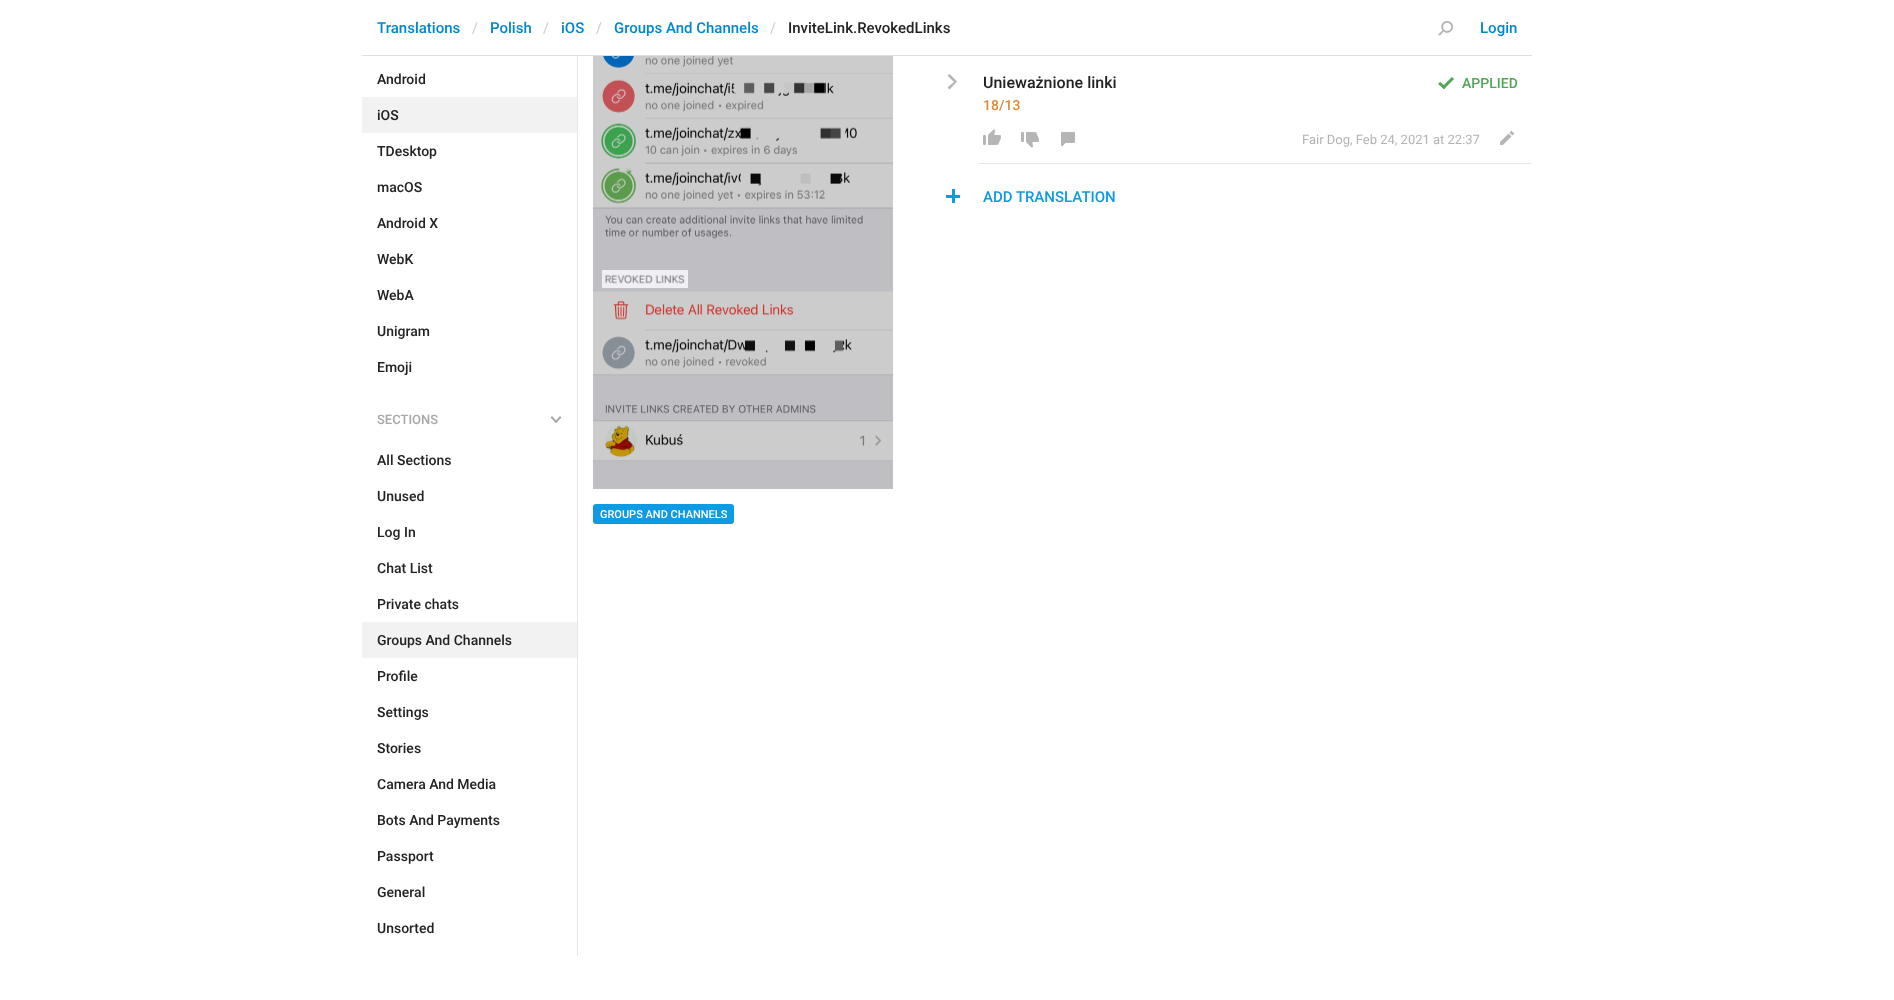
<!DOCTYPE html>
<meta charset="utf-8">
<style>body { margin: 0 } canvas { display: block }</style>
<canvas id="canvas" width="1894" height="1000"></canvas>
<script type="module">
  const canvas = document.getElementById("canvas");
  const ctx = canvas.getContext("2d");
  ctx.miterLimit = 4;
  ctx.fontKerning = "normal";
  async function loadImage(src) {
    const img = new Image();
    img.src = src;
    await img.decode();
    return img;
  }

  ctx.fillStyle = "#ffffff";
  ctx.fillRect(0, 0, 1894, 1000);
  ctx.fillStyle = "#e0e0e0";
  ctx.fillRect(362, 55, 1170, 1);
  ctx.font = "500 15px Roboto";
  ctx.fillStyle = "#0088cc";
  ctx.fillText("Translations", 377, 33);
  ctx.fillStyle = "#d4d4d4";
  ctx.fillText("/", 472, 33);
  ctx.fillStyle = "#0088cc";
  ctx.fillText("Polish", 490, 33);
  ctx.fillStyle = "#d4d4d4";
  ctx.fillText("/", 543, 33);
  ctx.fillStyle = "#0088cc";
  ctx.fillText("iOS", 561, 33);
  ctx.fillStyle = "#d4d4d4";
  ctx.fillText("/", 596, 33);
  ctx.fillStyle = "#0088cc";
  ctx.fillText("Groups And Channels", 614, 33);
  ctx.fillStyle = "#d4d4d4";
  ctx.fillText("/", 770, 33);
  ctx.fillStyle = "#222222";
  ctx.fillText("InviteLink.RevokedLinks", 788, 33);
  ctx.drawImage(await loadImage("img1.png"), 1438, 21, 15, 15);
  ctx.fillStyle = "#0088cc";
  ctx.fillText("Login", 1480, 33);
  ctx.font = "500 14px Roboto";
  ctx.fillStyle = "#222222";
  ctx.fillText("Android", 377, 84);
  ctx.fillStyle = "#f2f2f2";
  ctx.fillRect(362, 97, 215, 36);
  ctx.fillStyle = "#222222";
  ctx.fillText("iOS", 377, 120);
  ctx.fillText("TDesktop", 377, 156);
  ctx.fillText("macOS", 377, 192);
  ctx.fillText("Android X", 377, 228);
  ctx.fillText("WebK", 377, 264);
  ctx.fillText("WebA", 377, 300);
  ctx.fillText("Unigram", 377, 336);
  ctx.fillText("Emoji", 377, 372);
  ctx.font = "500 13px Roboto";
  ctx.fillStyle = "#a8a8a8";
  ctx.fillText("SECTIONS", 377, 424);
  ctx.beginPath();
  ctx.moveTo(556, 423);
  ctx.lineTo(550.5, 417.5);
  ctx.lineTo(552, 416);
  ctx.lineTo(557.5, 422);
  ctx.closePath();
  ctx.fill();
  ctx.beginPath();
  ctx.moveTo(556, 423);
  ctx.lineTo(554.5, 422);
  ctx.lineTo(560, 416);
  ctx.lineTo(561.5, 417.5);
  ctx.closePath();
  ctx.fill();
  ctx.font = "500 14px Roboto";
  ctx.fillStyle = "#222222";
  ctx.fillText("All Sections", 377, 465);
  ctx.fillText("Unused", 377, 501);
  ctx.fillText("Log In", 377, 537);
  ctx.fillText("Chat List", 377, 573);
  ctx.fillText("Private chats", 377, 609);
  ctx.fillStyle = "#f2f2f2";
  ctx.fillRect(362, 622, 215, 36);
  ctx.fillStyle = "#222222";
  ctx.fillText("Groups And Channels", 377, 645);
  ctx.fillText("Profile", 377, 681);
  ctx.fillText("Settings", 377, 717);
  ctx.fillText("Stories", 377, 753);
  ctx.fillText("Camera And Media", 377, 789);
  ctx.fillText("Bots And Payments", 377, 825);
  ctx.fillText("Passport", 377, 861);
  ctx.fillText("General", 377, 897);
  ctx.fillText("Unsorted", 377, 933);
  ctx.fillStyle = "#e7e7e7";
  ctx.fillRect(577, 56, 1, 900);
  ctx.save();
  ctx.beginPath();
  ctx.rect(918, 55, 614, 110);
  ctx.clip();
  ctx.beginPath();
  ctx.moveTo(978, 163);
  ctx.lineTo(978, 164);
  ctx.lineTo(1592, 164);
  ctx.lineTo(1592, 56);
  ctx.lineTo(1532, 56);
  ctx.lineTo(1532, 163);
  ctx.closePath();
  ctx.fill();
  ctx.restore();
  ctx.fillStyle = "#b3b3b3";
  ctx.beginPath();
  ctx.moveTo(954, 82);
  ctx.lineTo(947.5, 87.5);
  ctx.lineTo(949.5, 89.5);
  ctx.lineTo(957, 81.5);
  ctx.lineTo(949.5, 74);
  ctx.lineTo(947.5, 75.5);
  ctx.closePath();
  ctx.fill();
  ctx.font = "500 16px Roboto";
  ctx.fillStyle = "#222222";
  ctx.fillText("Unieważnione linki", 983, 88);
  ctx.font = "500 14px Roboto";
  ctx.fillStyle = "#de8833";
  ctx.fillText("18/13", 983, 110);
  ctx.drawImage(await loadImage("img2.png"), 983, 129, 18, 16);
  ctx.drawImage(await loadImage("img3.png"), 1021, 132, 18, 16);
  ctx.drawImage(await loadImage("img4.png"), 1061, 132, 14, 14);
  ctx.font = "13px Roboto";
  ctx.fillStyle = "#b3b3b3";
  ctx.fillText("Fair Dog", 1302, 144);
  ctx.fillText(", Feb 24, 2021 at 22:37", 1350, 144);
  ctx.drawImage(await loadImage("img5.png"), 1500, 131, 14, 14);
  ctx.drawImage(await loadImage("img6.png"), 1438, 77, 16, 13);
  ctx.font = "500 14px Roboto";
  ctx.fillStyle = "#51a657";
  ctx.fillText("APPLIED", 1462, 88);
  ctx.fillStyle = "#0f9ae4";
  ctx.fillRect(946, 195, 14, 3);
  ctx.fillRect(952, 189, 3, 14);
  ctx.font = "500 15px Roboto";
  ctx.fillText("ADD TRANSLATION", 983, 202);
  ctx.drawImage(await loadImage("img7.png"), 593, 56, 300, 433);
  ctx.drawImage(await loadImage("img8.png"), 602, 270, 86, 18);
  ctx.beginPath();
  ctx.roundRect(593, 504, 141, 20, 3);
  ctx.fill();
  ctx.font = "500 11px Roboto";
  ctx.fillStyle = "#ffffff";
  ctx.fillText("GROUPS AND CHANNELS", 600, 518);
</script>
